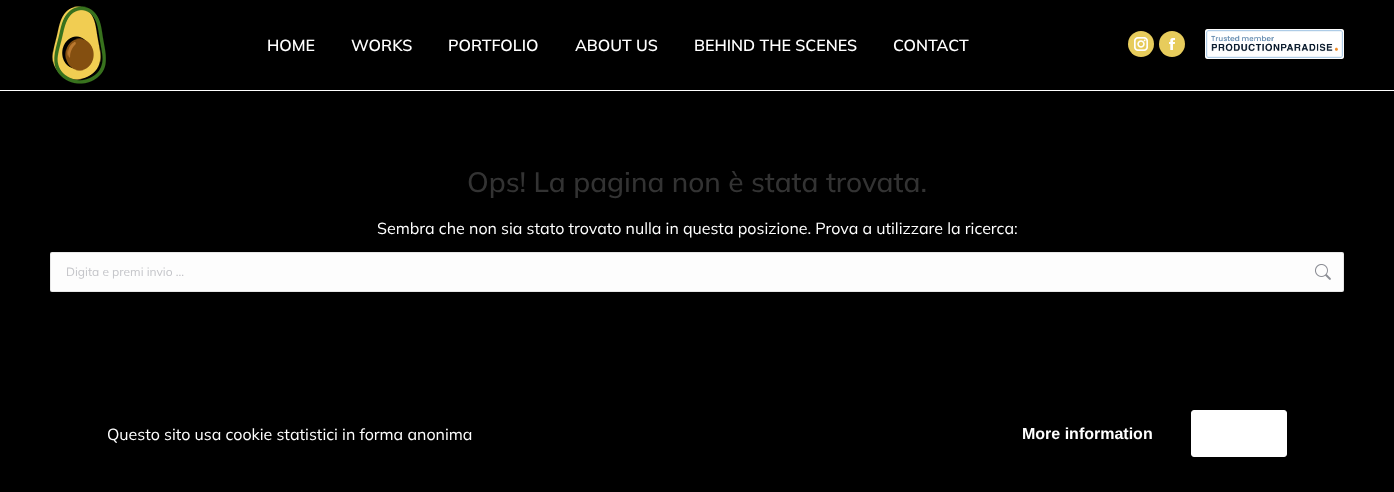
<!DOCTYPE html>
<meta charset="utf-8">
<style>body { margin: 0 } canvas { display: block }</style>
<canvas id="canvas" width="1394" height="492"></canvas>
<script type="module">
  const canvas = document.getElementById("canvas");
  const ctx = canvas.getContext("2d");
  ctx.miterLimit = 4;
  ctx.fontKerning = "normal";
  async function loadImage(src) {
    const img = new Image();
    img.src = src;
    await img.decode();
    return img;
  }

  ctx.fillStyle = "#000000";
  ctx.fillRect(0, 0, 1394, 492);
  ctx.fillStyle = "#ffffff";
  ctx.fillRect(0, 90, 1394, 1);
  ctx.drawImage(await loadImage("img1.png"), 52, 6, 54, 78);
  ctx.font = "600 16px Mulish";
  ctx.fillText("HOME", 267, 51);
  ctx.fillText("WORKS", 351, 51);
  ctx.fillText("PORTFOLIO", 448, 51);
  ctx.fillText("ABOUT US", 575, 51);
  ctx.fillText("BEHIND THE SCENES", 694, 51);
  ctx.fillText("CONTACT", 893, 51);
  ctx.fillStyle = "#e7cc5c";
  ctx.beginPath();
  ctx.arc(1141, 44, 13, 0, Math.PI * 2);
  ctx.fill();
  ctx.drawImage(await loadImage("img2.png"), 1134, 37, 14, 14);
  ctx.beginPath();
  ctx.arc(1172, 44, 13, 0, Math.PI * 2);
  ctx.fill();
  ctx.drawImage(await loadImage("img3.png"), 1169, 38, 6, 12);
  ctx.drawImage(await loadImage("img4.png"), 1205, 29, 139, 30);
  ctx.font = "500 28px Mulish";
  ctx.fillStyle = "#333333";
  ctx.fillText("Ops! La pagina non è stata trovata.", 467, 192);
  ctx.font = "16px Mulish";
  ctx.fillStyle = "#ffffff";
  ctx.fillText("Sembra che non sia stato trovato nulla in questa posizione. Prova a utilizzare la ricerca:", 377, 234);
  ctx.fillStyle = "#fdfdfd";
  ctx.beginPath();
  ctx.roundRect(50, 252, 1294, 40, 2);
  ctx.fill();
  ctx.beginPath();
  ctx.roundRect(50.5, 252.5, 1293, 39, 1.5);
  ctx.strokeStyle = "rgba(51, 51, 51, 0.11)";
  ctx.stroke();
  ctx.font = "12px Mulish";
  ctx.fillStyle = "#c4c5c9";
  ctx.fillText("Digita e premi invio …", 66, 276);
  ctx.drawImage(await loadImage("img5.png"), 1315, 264, 16, 16);
  ctx.font = "16px Mulish";
  ctx.fillStyle = "#ffffff";
  ctx.fillText("Questo sito usa cookie statistici in forma anonima", 107, 440);
  ctx.font = "bold 16px Liberation Sans";
  ctx.fillText("More information", 1022, 439);
  ctx.beginPath();
  ctx.roundRect(1191.5, 410.5, 95, 46, 2.5);
  ctx.fill();
  ctx.strokeStyle = "#ffffff";
  ctx.stroke();
</script>
